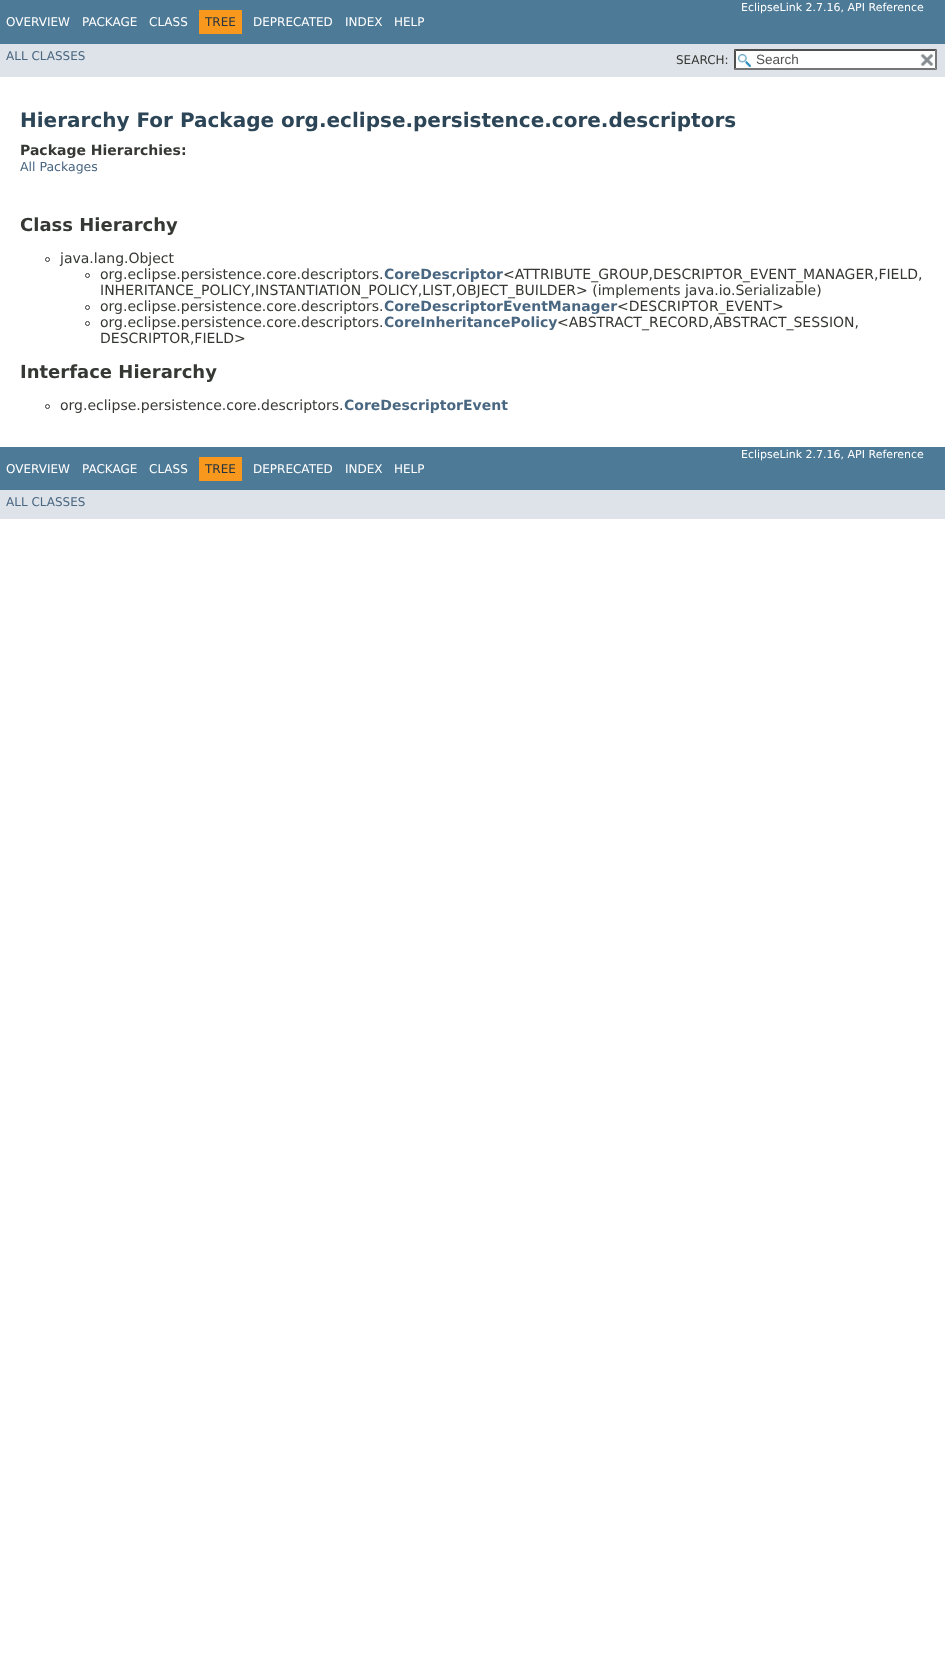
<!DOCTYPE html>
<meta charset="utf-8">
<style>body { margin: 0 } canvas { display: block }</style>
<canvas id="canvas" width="945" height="1673"></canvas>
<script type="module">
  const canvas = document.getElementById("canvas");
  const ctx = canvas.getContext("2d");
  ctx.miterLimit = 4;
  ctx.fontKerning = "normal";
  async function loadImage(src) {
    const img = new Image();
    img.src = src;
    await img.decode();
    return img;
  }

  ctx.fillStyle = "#ffffff";
  ctx.fillRect(0, 0, 945, 1673);
  ctx.fillStyle = "#4d7a97";
  ctx.fillRect(0, 0, 945, 44);
  ctx.font = "11px DejaVu Sans";
  ctx.fillStyle = "#ffffff";
  ctx.fillText("EclipseLink 2.7.16, API Reference", 741, 11);
  ctx.font = "12px DejaVu Sans";
  ctx.fillText("OVERVIEW", 6, 26);
  ctx.fillText("PACKAGE", 82, 26);
  ctx.fillText("CLASS", 149, 26);
  ctx.fillStyle = "#f8981d";
  ctx.fillRect(199, 10, 43, 24);
  ctx.fillStyle = "#253441";
  ctx.fillText("TREE", 205, 26);
  ctx.fillStyle = "#ffffff";
  ctx.fillText("DEPRECATED", 253, 26);
  ctx.fillText("INDEX", 345, 26);
  ctx.fillText("HELP", 394, 26);
  ctx.fillStyle = "#dee3e9";
  ctx.fillRect(0, 44, 945, 33);
  ctx.fillStyle = "#4a6782";
  ctx.fillText("ALL CLASSES", 6, 60);
  ctx.fillStyle = "#353833";
  ctx.fillText("SEARCH:", 676, 64);
  ctx.fillStyle = "#ffffff";
  ctx.fillRect(734, 49, 203, 21);
  ctx.drawImage(await loadImage("img1.png"), 738, 54, 13, 13);
  ctx.fillStyle = "#4f4f4f";
  ctx.beginPath();
  ctx.moveTo(734, 49);
  ctx.lineTo(937, 49);
  ctx.lineTo(935, 51);
  ctx.lineTo(736, 51);
  ctx.closePath();
  ctx.fill();
  ctx.fillStyle = "#767676";
  ctx.beginPath();
  ctx.moveTo(937, 49);
  ctx.lineTo(937, 70);
  ctx.lineTo(935, 68);
  ctx.lineTo(935, 51);
  ctx.closePath();
  ctx.fill();
  ctx.beginPath();
  ctx.moveTo(937, 70);
  ctx.lineTo(734, 70);
  ctx.lineTo(736, 68);
  ctx.lineTo(935, 68);
  ctx.closePath();
  ctx.fill();
  ctx.fillStyle = "#4f4f4f";
  ctx.beginPath();
  ctx.moveTo(734, 70);
  ctx.lineTo(734, 49);
  ctx.lineTo(736, 51);
  ctx.lineTo(736, 68);
  ctx.closePath();
  ctx.fill();
  ctx.font = "13.5px Liberation Sans";
  ctx.fillStyle = "#545454";
  ctx.fillText("Search", 756, 64);
  ctx.drawImage(await loadImage("img2.png"), 920, 54, 14, 12);
  ctx.font = "bold 20px DejaVu Sans";
  ctx.fillStyle = "#2c4557";
  ctx.fillText("Hierarchy For Package org.eclipse.persistence.core.descriptors", 20, 127);
  ctx.font = "bold 14px DejaVu Sans";
  ctx.fillStyle = "#353833";
  ctx.fillText("Package Hierarchies:", 20, 155);
  ctx.font = "12.5px DejaVu Sans";
  ctx.fillStyle = "#4a6782";
  ctx.fillText("All Packages", 20, 171);
  ctx.font = "bold 18px DejaVu Sans";
  ctx.fillStyle = "#353833";
  ctx.fillText("Class Hierarchy", 20, 231);
  ctx.beginPath();
  ctx.arc(47.5, 259.5, 2, 0, Math.PI * 2);
  ctx.strokeStyle = "#353833";
  ctx.stroke();
  ctx.font = "14px DejaVu Sans";
  ctx.fillText("java.lang.Object", 60, 263);
  ctx.beginPath();
  ctx.arc(87.5, 275.5, 2, 0, Math.PI * 2);
  ctx.stroke();
  ctx.fillText("org.eclipse.persistence.core.descriptors.", 100, 279);
  ctx.font = "bold 14px DejaVu Sans";
  ctx.fillStyle = "#4a6782";
  ctx.fillText("CoreDescriptor", 384, 279);
  ctx.font = "14px DejaVu Sans";
  ctx.fillStyle = "#353833";
  ctx.fillText("<ATTRIBUTE_GROUP,DESCRIPTOR_EVENT_MANAGER,FIELD,", 503, 279);
  ctx.fillText("INHERITANCE_POLICY,INSTANTIATION_POLICY,LIST,OBJECT_BUILDER> (implements java.io.Serializable)", 100, 295);
  ctx.beginPath();
  ctx.arc(87.5, 307.5, 2, 0, Math.PI * 2);
  ctx.stroke();
  ctx.fillText("org.eclipse.persistence.core.descriptors.", 100, 311);
  ctx.font = "bold 14px DejaVu Sans";
  ctx.fillStyle = "#4a6782";
  ctx.fillText("CoreDescriptorEventManager", 384, 311);
  ctx.font = "14px DejaVu Sans";
  ctx.fillStyle = "#353833";
  ctx.fillText("<DESCRIPTOR_EVENT>", 617, 311);
  ctx.beginPath();
  ctx.arc(87.5, 323.5, 2, 0, Math.PI * 2);
  ctx.stroke();
  ctx.fillText("org.eclipse.persistence.core.descriptors.", 100, 327);
  ctx.font = "bold 14px DejaVu Sans";
  ctx.fillStyle = "#4a6782";
  ctx.fillText("CoreInheritancePolicy", 384, 327);
  ctx.font = "14px DejaVu Sans";
  ctx.fillStyle = "#353833";
  ctx.fillText("<ABSTRACT_RECORD,ABSTRACT_SESSION,", 557, 327);
  ctx.fillText("DESCRIPTOR,FIELD>", 100, 343);
  ctx.font = "bold 18px DejaVu Sans";
  ctx.fillText("Interface Hierarchy", 20, 378);
  ctx.beginPath();
  ctx.arc(47.5, 406.5, 2, 0, Math.PI * 2);
  ctx.stroke();
  ctx.font = "14px DejaVu Sans";
  ctx.fillText("org.eclipse.persistence.core.descriptors.", 60, 410);
  ctx.font = "bold 14px DejaVu Sans";
  ctx.fillStyle = "#4a6782";
  ctx.fillText("CoreDescriptorEvent", 344, 410);
  ctx.fillStyle = "#4d7a97";
  ctx.fillRect(0, 447, 945, 43);
  ctx.font = "11px DejaVu Sans";
  ctx.fillStyle = "#ffffff";
  ctx.fillText("EclipseLink 2.7.16, API Reference", 741, 458);
  ctx.font = "12px DejaVu Sans";
  ctx.fillText("OVERVIEW", 6, 473);
  ctx.fillText("PACKAGE", 82, 473);
  ctx.fillText("CLASS", 149, 473);
  ctx.fillStyle = "#f8981d";
  ctx.fillRect(199, 457, 43, 24);
  ctx.fillStyle = "#253441";
  ctx.fillText("TREE", 205, 473);
  ctx.fillStyle = "#ffffff";
  ctx.fillText("DEPRECATED", 253, 473);
  ctx.fillText("INDEX", 345, 473);
  ctx.fillText("HELP", 394, 473);
  ctx.fillStyle = "#dee3e9";
  ctx.fillRect(0, 490, 945, 29);
  ctx.fillStyle = "#4a6782";
  ctx.fillText("ALL CLASSES", 6, 506);
</script>
